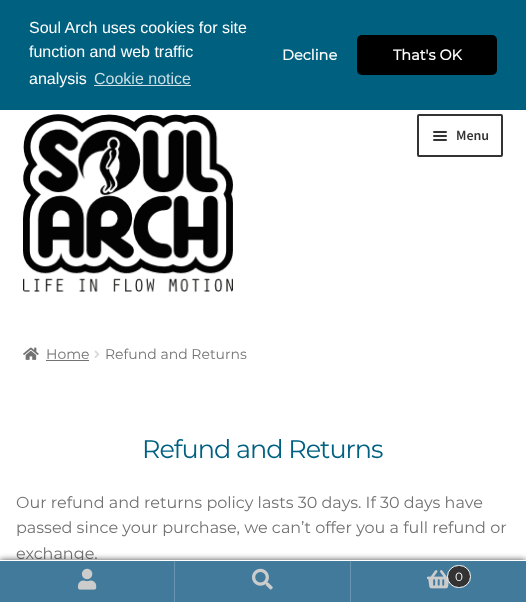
<!DOCTYPE html>
<meta charset="utf-8">
<style>body { margin: 0 } canvas { display: block }</style>
<canvas id="canvas" width="526" height="602"></canvas>
<script type="module">
  const canvas = document.getElementById("canvas");
  const ctx = canvas.getContext("2d");
  ctx.miterLimit = 4;
  ctx.fontKerning = "normal";
  async function loadImage(src) {
    const img = new Image();
    img.src = src;
    await img.decode();
    return img;
  }

  ctx.fillStyle = "#ffffff";
  ctx.fillRect(0, 0, 526, 602);
  ctx.fillStyle = "#00607f";
  ctx.fillRect(0, 0, 526, 110);
  ctx.font = "16px Liberation Sans";
  ctx.fillStyle = "#ffffff";
  ctx.fillText("Soul Arch uses cookies for site", 29, 33);
  ctx.fillText("function and web traffic", 29, 57);
  ctx.fillText("analysis", 29, 84);
  ctx.fillStyle = "#ccdfe5";
  ctx.fillText("Cookie notice", 94, 84);
  ctx.fillRect(94, 85, 97, 1);
  ctx.font = "bold 14.5px Montserrat";
  ctx.fillStyle = "#ffffff";
  ctx.fillText("Decline", 282, 60);
  ctx.fillStyle = "#000000";
  ctx.beginPath();
  ctx.roundRect(357, 35, 140, 40, 5);
  ctx.fill();
  ctx.fillStyle = "#ffffff";
  ctx.fillText("That's OK", 393, 60);
  ctx.drawImage(await loadImage("img1.png"), 23, 114, 210, 178);
  ctx.beginPath();
  ctx.roundRect(418, 115, 84, 41, 1);
  ctx.strokeStyle = "#333333";
  ctx.lineWidth = 2;
  ctx.stroke();
  ctx.fillStyle = "#333333";
  ctx.beginPath();
  ctx.roundRect(433, 131, 14, 2, 1);
  ctx.fill();
  ctx.beginPath();
  ctx.roundRect(433, 135, 14, 2, 1);
  ctx.fill();
  ctx.font = "600 14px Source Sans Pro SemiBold";
  ctx.fillText("Menu", 456, 140);
  ctx.beginPath();
  ctx.roundRect(433, 139, 14, 2, 1);
  ctx.fill();
  ctx.drawImage(await loadImage("img2.png"), 23, 347, 16, 13);
  ctx.font = "14px Montserrat";
  ctx.fillStyle = "#727272";
  ctx.fillText("Home", 46, 359);
  ctx.fillRect(46, 360, 43, 1);
  ctx.drawImage(await loadImage("img3.png"), 94, 350, 6, 8);
  ctx.fillText("Refund and Returns", 105, 359);
  ctx.letterSpacing = "-1px";
  ctx.font = "25.5px Montserrat";
  ctx.fillStyle = "#006081";
  ctx.fillText("Refund and Returns", 142, 458);
  ctx.letterSpacing = "0px";
  ctx.font = "16px Montserrat";
  ctx.fillStyle = "#727272";
  ctx.fillText("Our refund and returns policy lasts 30 days. If 30 days have", 16, 508);
  ctx.fillText("passed since your purchase, we can’t offer you a full refund or", 16, 533);
  ctx.fillText("exchange.", 16, 559);
  ctx.fillStyle = "rgba(0, 0, 0, 0.7)";
  ctx.filter = "blur(3px)";
  ctx.beginPath();
  ctx.rect(0, 560, 526, 42);
  ctx.fill();
  ctx.filter = "none";
  ctx.fillStyle = "#ffffff";
  ctx.fillRect(0, 560, 526, 1);
  ctx.fillStyle = "#427a9c";
  ctx.fillRect(0, 561, 174, 41);
  ctx.fillStyle = "#6895b0";
  ctx.fillRect(174, 561, 1, 41);
  ctx.drawImage(await loadImage("img4.png"), 78, 568, 19, 22);
  ctx.fillStyle = "#427a9c";
  ctx.fillRect(175, 561, 175, 41);
  ctx.fillStyle = "#6895b0";
  ctx.fillRect(350, 561, 1, 41);
  ctx.drawImage(await loadImage("img5.png"), 252, 568, 21, 22);
  ctx.fillStyle = "#427a9c";
  ctx.fillRect(351, 561, 175, 41);
  ctx.drawImage(await loadImage("img6.png"), 427, 570, 22, 19);
  ctx.fillStyle = "#333333";
  ctx.beginPath();
  ctx.roundRect(447.5, 565.5, 23, 22, 11);
  ctx.fill();
  ctx.strokeStyle = "#ffffff";
  ctx.lineWidth = 1;
  ctx.stroke();
  ctx.font = "12px Montserrat";
  ctx.fillStyle = "#ffffff";
  ctx.fillText("0", 455, 581);
</script>
